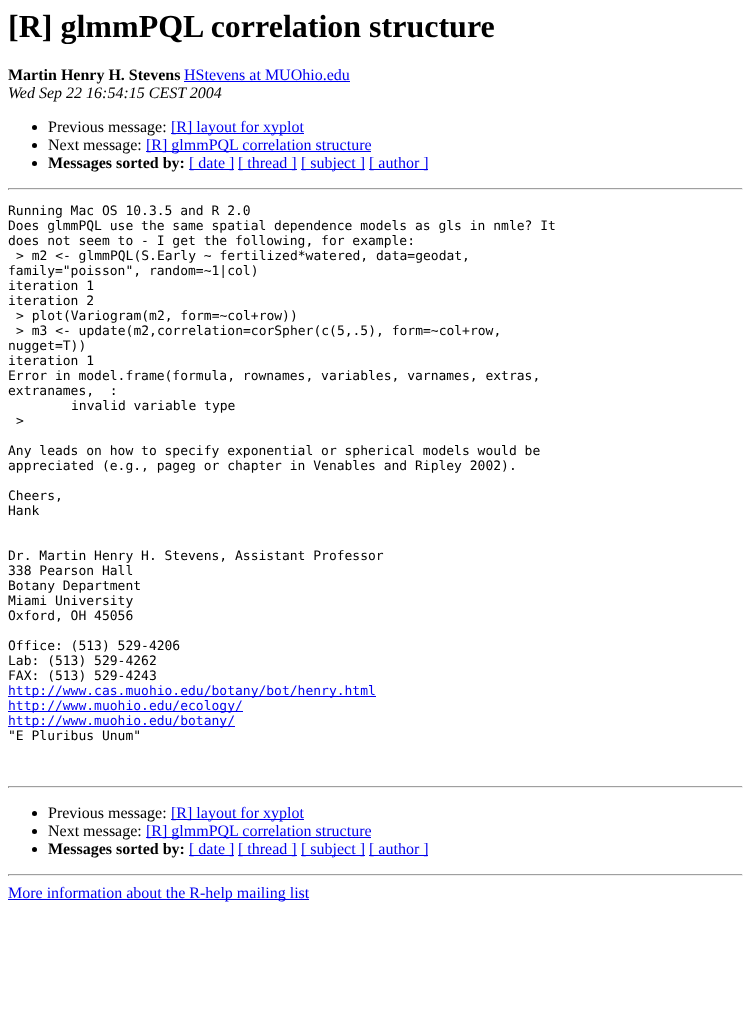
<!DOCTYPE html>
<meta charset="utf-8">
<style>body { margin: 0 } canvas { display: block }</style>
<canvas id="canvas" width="751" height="1016"></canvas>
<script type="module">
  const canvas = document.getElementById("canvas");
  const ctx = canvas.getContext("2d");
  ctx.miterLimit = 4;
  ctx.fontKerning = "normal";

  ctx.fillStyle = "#ffffff";
  ctx.fillRect(0, 0, 751, 1016);
  ctx.font = "bold 32px Liberation Serif";
  ctx.fillStyle = "#000000";
  ctx.fillText("[R] glmmPQL correlation structure", 8, 37);
  ctx.font = "bold 16px Liberation Serif";
  ctx.fillText("Martin Henry H. Stevens", 8, 80);
  ctx.font = "16px Liberation Serif";
  ctx.fillStyle = "#0000ee";
  ctx.fillText("HStevens at MUOhio.edu", 184, 80);
  ctx.fillRect(184, 81, 166, 1);
  ctx.font = "italic 16px Liberation Serif";
  ctx.fillStyle = "#000000";
  ctx.fillText("Wed Sep 22 16:54:15 CEST 2004", 8, 98);
  ctx.beginPath();
  ctx.arc(34.5, 127.5, 2.5, 0, Math.PI * 2);
  ctx.fill();
  ctx.font = "16px Liberation Serif";
  ctx.fillText("Previous message:", 48, 132);
  ctx.fillStyle = "#0000ee";
  ctx.fillRect(171, 133, 133, 1);
  ctx.fillText("[R] layout for xyplot", 171, 132);
  ctx.fillStyle = "#000000";
  ctx.beginPath();
  ctx.arc(34.5, 145.5, 2.5, 0, Math.PI * 2);
  ctx.fill();
  ctx.fillText("Next message:", 48, 150);
  ctx.fillStyle = "#0000ee";
  ctx.fillRect(146, 151, 225, 1);
  ctx.fillText("[R] glmmPQL correlation structure", 146, 150);
  ctx.fillStyle = "#000000";
  ctx.beginPath();
  ctx.arc(34.5, 163.5, 2.5, 0, Math.PI * 2);
  ctx.fill();
  ctx.font = "bold 16px Liberation Serif";
  ctx.fillText("Messages sorted by:", 48, 168);
  ctx.fillStyle = "#0000ee";
  ctx.fillRect(189, 169, 45, 1);
  ctx.font = "16px Liberation Serif";
  ctx.fillText("[ date ]", 189, 168);
  ctx.fillRect(238, 169, 59, 1);
  ctx.fillText("[ thread ]", 238, 168);
  ctx.fillRect(301, 169, 64, 1);
  ctx.fillText("[ subject ]", 301, 168);
  ctx.fillRect(369, 169, 59, 1);
  ctx.fillText("[ author ]", 369, 168);
  ctx.fillStyle = "#9f9f9f";
  ctx.fillRect(8, 188, 735, 1);
  ctx.fillStyle = "#eeeeee";
  ctx.fillRect(742, 188, 1, 2);
  ctx.fillRect(8, 189, 735, 1);
  ctx.fillStyle = "#9f9f9f";
  ctx.fillRect(8, 188, 1, 2);
  ctx.font = "13px DejaVu Sans Mono";
  ctx.fillStyle = "#000000";
  ctx.fillText("Running Mac OS 10.3.5 and R 2.0", 8, 215);
  ctx.fillText("Does glmmPQL use the same spatial dependence models as gls in nmle? It", 8, 230);
  ctx.fillText("does not seem to - I get the following, for example:", 8, 245);
  ctx.fillText("> m2 <- glmmPQL(S.Early ~ fertilized*watered, data=geodat,", 16, 260);
  ctx.fillText("family=\"poisson\", random=~1|col)", 8, 275);
  ctx.fillText("iteration 1", 8, 290);
  ctx.fillText("iteration 2", 8, 305);
  ctx.fillText("> plot(Variogram(m2, form=~col+row))", 16, 320);
  ctx.fillText("> m3 <- update(m2,correlation=corSpher(c(5,.5), form=~col+row,", 16, 335);
  ctx.fillText("nugget=T))", 8, 350);
  ctx.fillText("iteration 1", 8, 365);
  ctx.fillText("Error in model.frame(formula, rownames, variables, varnames, extras,", 8, 380);
  ctx.fillText("extranames,  :", 8, 395);
  ctx.fillText("invalid variable type", 71, 410);
  ctx.fillText(">", 16, 425);
  ctx.fillText("Any leads on how to specify exponential or spherical models would be", 8, 455);
  ctx.fillText("appreciated (e.g., pageg or chapter in Venables and Ripley 2002).", 8, 470);
  ctx.fillText("Cheers,", 8, 500);
  ctx.fillText("Hank", 8, 515);
  ctx.fillText("Dr. Martin Henry H. Stevens, Assistant Professor", 8, 560);
  ctx.fillText("338 Pearson Hall", 8, 575);
  ctx.fillText("Botany Department", 8, 590);
  ctx.fillText("Miami University", 8, 605);
  ctx.fillText("Oxford, OH 45056", 8, 620);
  ctx.fillText("Office: (513) 529-4206", 8, 650);
  ctx.fillText("Lab: (513) 529-4262", 8, 665);
  ctx.fillText("FAX: (513) 529-4243", 8, 680);
  ctx.fillStyle = "#0000ee";
  ctx.fillRect(8, 696, 368, 1);
  ctx.fillText("http://www.cas.muohio.edu/botany/bot/henry.html", 8, 695);
  ctx.fillRect(8, 711, 235, 1);
  ctx.fillText("http://www.muohio.edu/ecology/", 8, 710);
  ctx.fillRect(8, 726, 227, 1);
  ctx.fillText("http://www.muohio.edu/botany/", 8, 725);
  ctx.fillStyle = "#000000";
  ctx.fillText("\"E Pluribus Unum\"", 8, 740);
  ctx.fillStyle = "#9f9f9f";
  ctx.fillRect(8, 786, 735, 1);
  ctx.fillStyle = "#eeeeee";
  ctx.fillRect(742, 786, 1, 2);
  ctx.fillRect(8, 787, 735, 1);
  ctx.fillStyle = "#9f9f9f";
  ctx.fillRect(8, 786, 1, 2);
  ctx.fillStyle = "#000000";
  ctx.beginPath();
  ctx.arc(34.5, 813.5, 2.5, 0, Math.PI * 2);
  ctx.fill();
  ctx.font = "16px Liberation Serif";
  ctx.fillText("Previous message:", 48, 818);
  ctx.fillStyle = "#0000ee";
  ctx.fillRect(171, 819, 133, 1);
  ctx.fillText("[R] layout for xyplot", 171, 818);
  ctx.fillStyle = "#000000";
  ctx.beginPath();
  ctx.arc(34.5, 831.5, 2.5, 0, Math.PI * 2);
  ctx.fill();
  ctx.fillText("Next message:", 48, 836);
  ctx.fillStyle = "#0000ee";
  ctx.fillRect(146, 837, 225, 1);
  ctx.fillText("[R] glmmPQL correlation structure", 146, 836);
  ctx.fillStyle = "#000000";
  ctx.beginPath();
  ctx.arc(34.5, 849.5, 2.5, 0, Math.PI * 2);
  ctx.fill();
  ctx.font = "bold 16px Liberation Serif";
  ctx.fillText("Messages sorted by:", 48, 854);
  ctx.fillStyle = "#0000ee";
  ctx.fillRect(189, 855, 45, 1);
  ctx.font = "16px Liberation Serif";
  ctx.fillText("[ date ]", 189, 854);
  ctx.fillRect(238, 855, 59, 1);
  ctx.fillText("[ thread ]", 238, 854);
  ctx.fillRect(301, 855, 64, 1);
  ctx.fillText("[ subject ]", 301, 854);
  ctx.fillRect(369, 855, 59, 1);
  ctx.fillText("[ author ]", 369, 854);
  ctx.fillStyle = "#9f9f9f";
  ctx.fillRect(8, 874, 735, 1);
  ctx.fillStyle = "#eeeeee";
  ctx.fillRect(742, 874, 1, 2);
  ctx.fillRect(8, 875, 735, 1);
  ctx.fillStyle = "#9f9f9f";
  ctx.fillRect(8, 874, 1, 2);
  ctx.fillStyle = "#0000ee";
  ctx.fillRect(8, 899, 301, 1);
  ctx.fillText("More information about the R-help mailing list", 8, 898);
</script>
